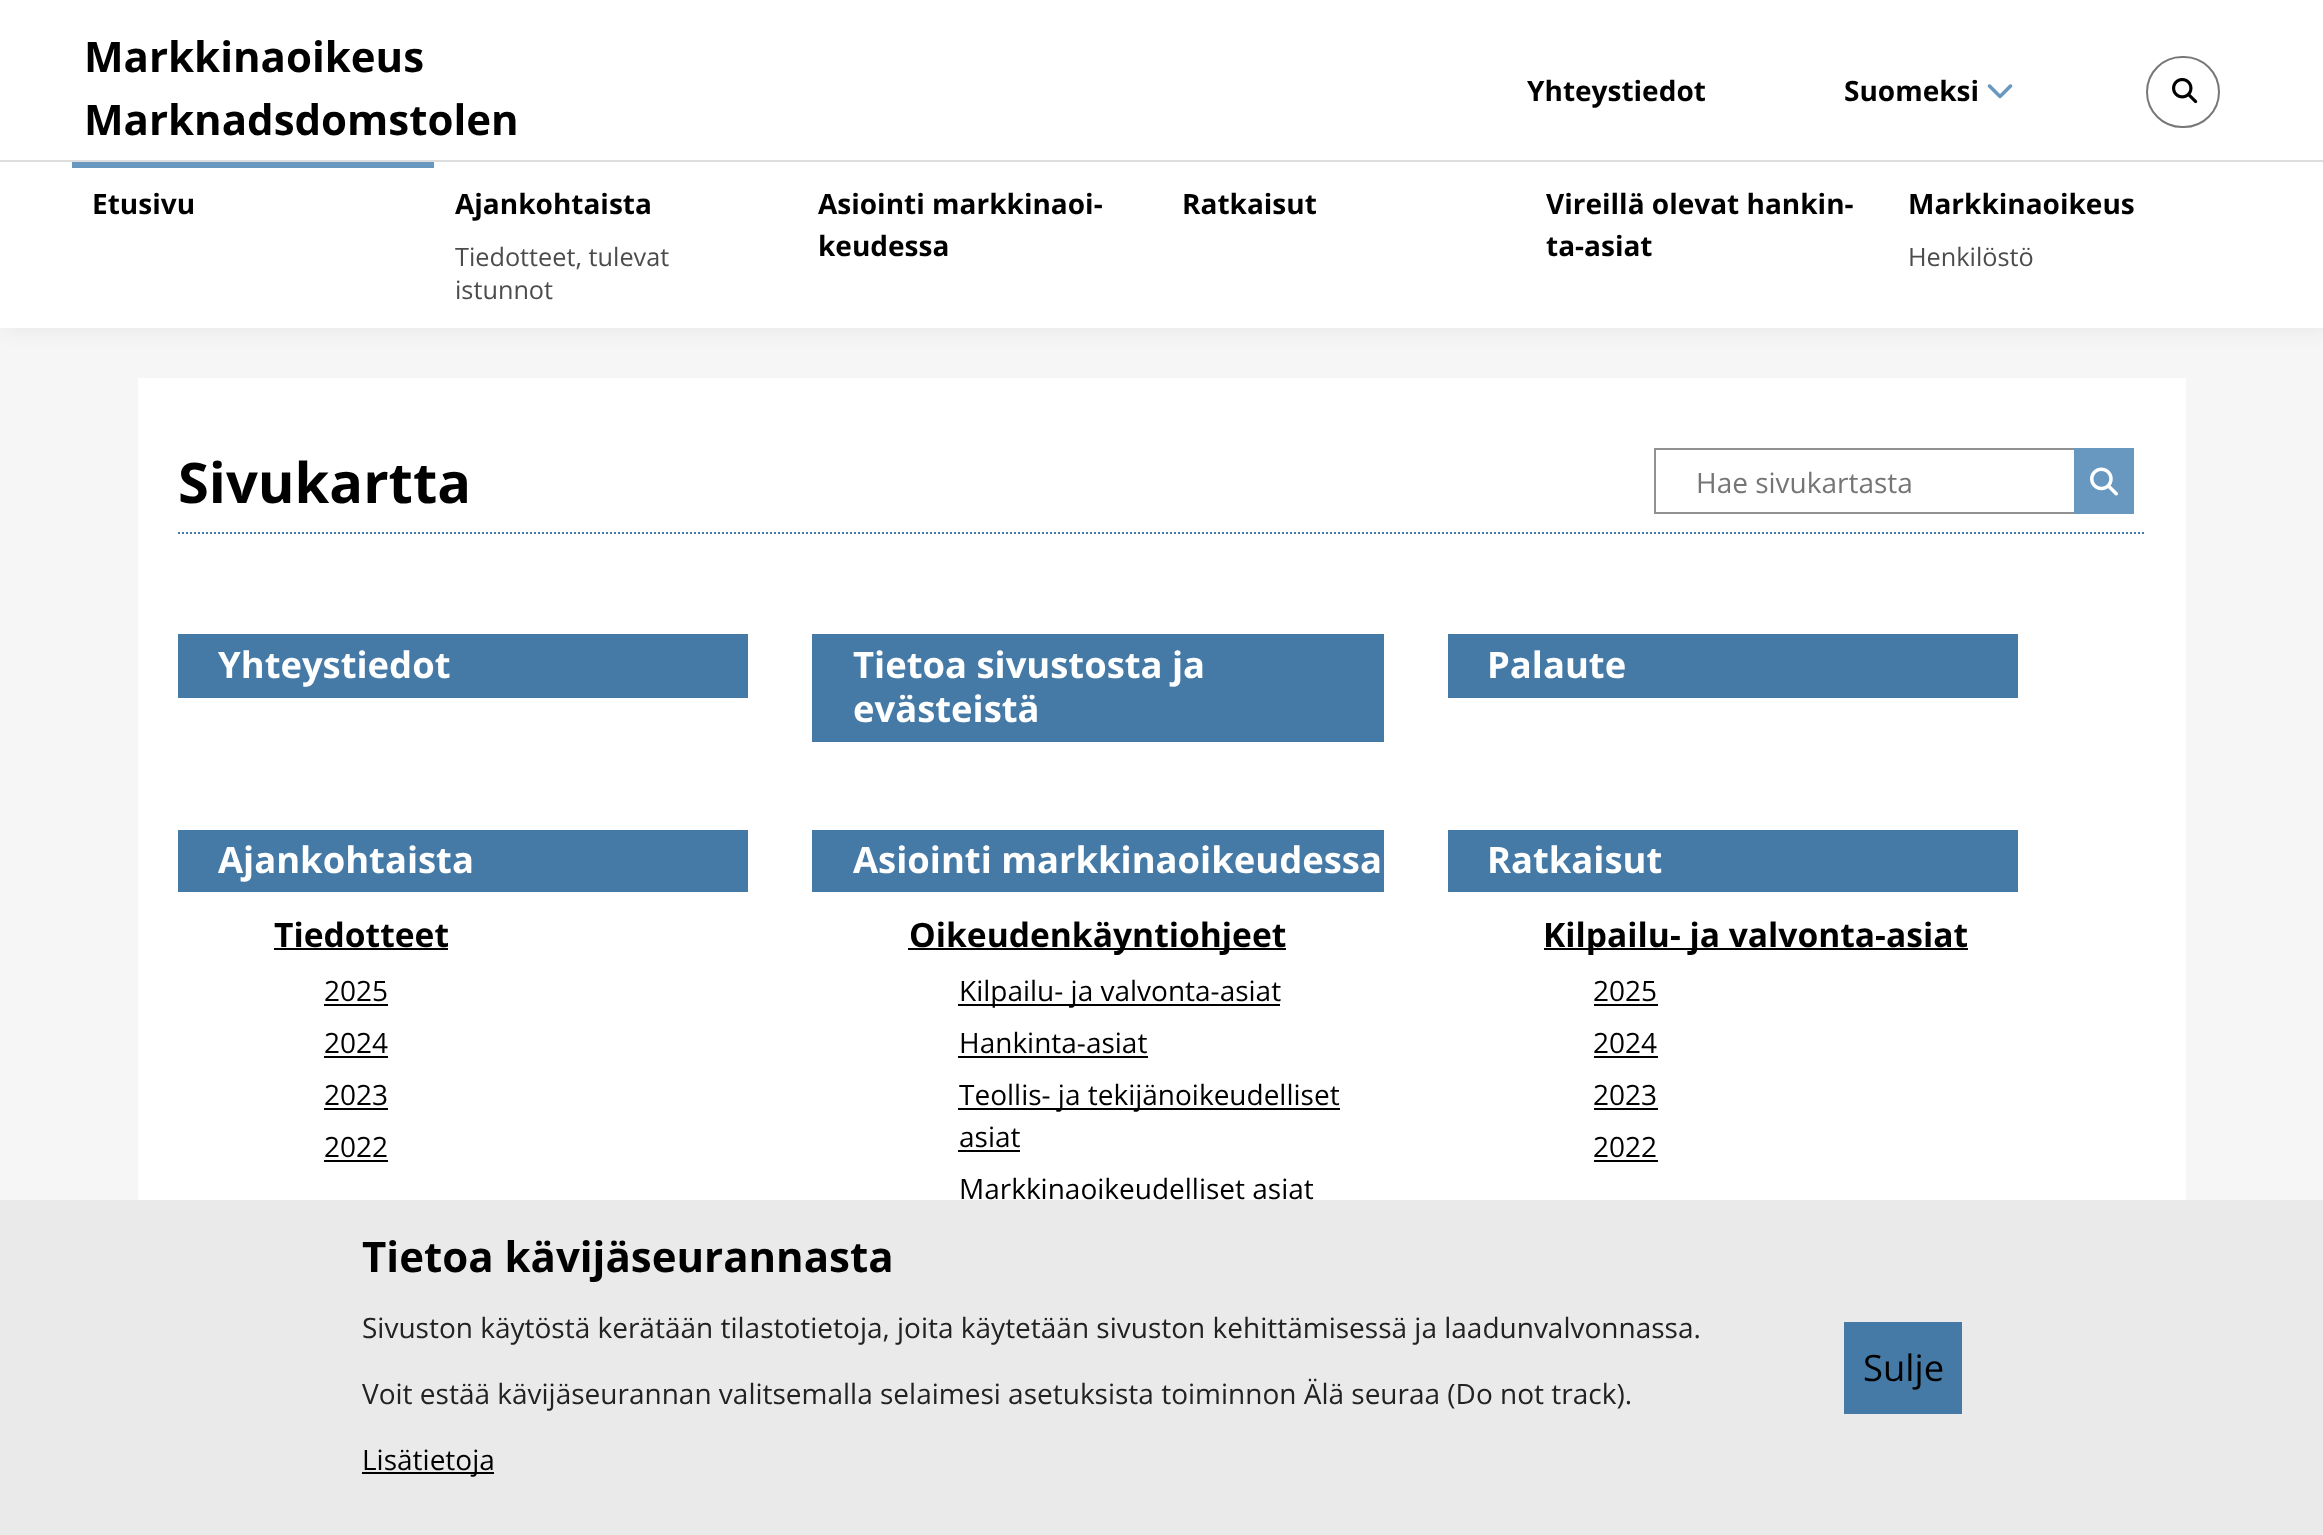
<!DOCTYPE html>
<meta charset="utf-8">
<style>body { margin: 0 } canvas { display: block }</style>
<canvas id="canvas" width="2323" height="1535"></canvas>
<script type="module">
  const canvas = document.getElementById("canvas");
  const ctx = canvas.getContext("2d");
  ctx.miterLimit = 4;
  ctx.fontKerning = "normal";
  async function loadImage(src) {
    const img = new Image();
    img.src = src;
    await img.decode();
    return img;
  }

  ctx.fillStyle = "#f6f6f6";
  ctx.fillRect(0, 0, 2323, 1535);
  ctx.fillStyle = "rgba(0, 0, 0, 0.05)";
  ctx.filter = "blur(10px)";
  ctx.beginPath();
  ctx.rect(4, 166, 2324, 166);
  ctx.fill();
  ctx.filter = "none";
  ctx.fillStyle = "#ffffff";
  ctx.fillRect(0, 0, 2323, 160);
  ctx.fillStyle = "#dddddd";
  ctx.fillRect(0, 160, 2323, 2);
  ctx.font = "bold 42px Open Sans";
  ctx.fillStyle = "#000000";
  ctx.fillText("Markkinaoikeus", 84, 72);
  ctx.fillText("Marknadsdomstolen", 84, 135);
  ctx.font = "bold 28px Open Sans";
  ctx.fillText("Yhteystiedot", 1527, 101);
  ctx.fillText("Suomeksi", 1844, 101);
  ctx.drawImage(await loadImage("img1.png"), 1987, 84, 26, 15);
  ctx.beginPath();
  ctx.roundRect(2147, 57, 72, 70, 35);
  ctx.strokeStyle = "#777777";
  ctx.lineWidth = 2;
  ctx.stroke();
  ctx.drawImage(await loadImage("img2.png"), 2172, 77, 26, 27);
  ctx.fillStyle = "#ffffff";
  ctx.fillRect(0, 162, 2323, 166);
  ctx.fillStyle = "#6897c0";
  ctx.fillRect(72, 162, 362, 6);
  ctx.fillStyle = "#000000";
  ctx.fillText("Etusivu", 92, 214);
  ctx.fillText("Ajankohtaista", 455, 214);
  ctx.font = "25.25px Open Sans";
  ctx.fillStyle = "#4c4c4c";
  ctx.fillText("Tiedotteet, tulevat", 455, 266);
  ctx.fillText("istunnot", 455, 299);
  ctx.font = "bold 28px Open Sans";
  ctx.fillStyle = "#000000";
  ctx.fillText("Asiointi markkinaoi-", 818, 214);
  ctx.fillText("keudessa", 818, 256);
  ctx.fillText("Ratkaisut", 1182, 214);
  ctx.fillText("Vireillä olevat hankin-", 1546, 214);
  ctx.fillText("ta-asiat", 1546, 256);
  ctx.fillText("Markkinaoikeus", 1908, 214);
  ctx.font = "25.25px Open Sans";
  ctx.fillStyle = "#4c4c4c";
  ctx.fillText("Henkilöstö", 1908, 266);
  ctx.fillStyle = "#ffffff";
  ctx.fillRect(138, 378, 2048, 822);
  ctx.beginPath();
  ctx.moveTo(178, 533);
  ctx.lineTo(2146, 533);
  ctx.strokeStyle = "#457aa6";
  ctx.setLineDash([2, 2]);
  ctx.stroke();
  ctx.font = "bold 56px Open Sans";
  ctx.fillStyle = "#000000";
  ctx.fillText("Sivukartta", 178, 503);
  ctx.strokeStyle = "#919191";
  ctx.setLineDash([]);
  ctx.strokeRect(1655, 449, 426, 64);
  ctx.font = "28px Open Sans";
  ctx.fillStyle = "#757575";
  ctx.fillText("Hae sivukartasta", 1696, 493);
  ctx.fillStyle = "#6897c0";
  ctx.fillRect(2074, 448, 60, 66);
  ctx.drawImage(await loadImage("img3.png"), 2090, 467, 28, 29);
  ctx.fillStyle = "#457aa6";
  ctx.fillRect(178, 634, 570, 64);
  ctx.font = "bold 36.4px Open Sans";
  ctx.fillStyle = "#ffffff";
  ctx.fillText("Yhteystiedot", 218, 678);
  ctx.fillStyle = "#457aa6";
  ctx.fillRect(812, 634, 572, 108);
  ctx.fillStyle = "#ffffff";
  ctx.fillText("Tietoa sivustosta ja", 853, 678);
  ctx.fillText("evästeistä", 853, 722);
  ctx.fillStyle = "#457aa6";
  ctx.fillRect(1448, 634, 570, 64);
  ctx.fillStyle = "#ffffff";
  ctx.fillText("Palaute", 1487, 678);
  ctx.fillStyle = "#457aa6";
  ctx.fillRect(178, 830, 570, 62);
  ctx.fillStyle = "#ffffff";
  ctx.fillText("Ajankohtaista", 218, 873);
  ctx.font = "bold 33.6px Open Sans";
  ctx.fillStyle = "#000000";
  ctx.fillText("Tiedotteet", 274, 947);
  ctx.fillRect(274, 948, 174, 2);
  ctx.font = "28px Open Sans";
  ctx.fillText("2025", 324, 1001);
  ctx.fillRect(324, 1004, 64, 2);
  ctx.fillText("2024", 324, 1053);
  ctx.fillRect(324, 1056, 64, 2);
  ctx.fillText("2023", 324, 1105);
  ctx.fillRect(324, 1108, 64, 2);
  ctx.fillText("2022", 324, 1157);
  ctx.fillRect(324, 1160, 64, 2);
  ctx.fillStyle = "#457aa6";
  ctx.fillRect(812, 830, 572, 62);
  ctx.font = "bold 36.4px Open Sans";
  ctx.fillStyle = "#ffffff";
  ctx.fillText("Asiointi markkinaoikeudessa", 853, 873);
  ctx.fillStyle = "#000000";
  ctx.fillRect(908, 948, 378, 2);
  ctx.font = "bold 33.6px Open Sans";
  ctx.fillText("Oikeudenkäyntiohjeet", 909, 947);
  ctx.fillRect(958, 1004, 322, 2);
  ctx.font = "28px Open Sans";
  ctx.fillText("Kilpailu- ja valvonta-asiat", 959, 1001);
  ctx.fillText("Hankinta-asiat", 959, 1053);
  ctx.fillRect(958, 1056, 190, 2);
  ctx.fillRect(958, 1108, 382, 2);
  ctx.fillText("Teollis- ja tekijänoikeudelliset", 959, 1105);
  ctx.fillText("asiat", 959, 1147);
  ctx.fillRect(958, 1150, 62, 2);
  ctx.fillText("Markkinaoikeudelliset asiat", 959, 1199);
  ctx.fillStyle = "#457aa6";
  ctx.fillRect(1448, 830, 570, 62);
  ctx.font = "bold 36.4px Open Sans";
  ctx.fillStyle = "#ffffff";
  ctx.fillText("Ratkaisut", 1487, 873);
  ctx.fillStyle = "#000000";
  ctx.fillRect(1544, 948, 424, 2);
  ctx.font = "bold 33.6px Open Sans";
  ctx.fillText("Kilpailu- ja valvonta-asiat", 1543, 947);
  ctx.font = "28px Open Sans";
  ctx.fillText("2025", 1593, 1001);
  ctx.fillRect(1594, 1004, 64, 2);
  ctx.fillText("2024", 1593, 1053);
  ctx.fillRect(1594, 1056, 64, 2);
  ctx.fillText("2023", 1593, 1105);
  ctx.fillRect(1594, 1108, 64, 2);
  ctx.fillText("2022", 1593, 1157);
  ctx.fillRect(1594, 1160, 64, 2);
  ctx.fillStyle = "#eaeaea";
  ctx.fillRect(0, 1200, 2323, 335);
  ctx.font = "bold 42px Open Sans";
  ctx.fillStyle = "#000000";
  ctx.fillText("Tietoa kävijäseurannasta", 362, 1272);
  ctx.font = "28px Open Sans";
  ctx.fillStyle = "#222222";
  ctx.fillText("Sivuston käytöstä kerätään tilastotietoja, joita käytetään sivuston kehittämisessä ja laadunvalvonnassa.", 362, 1338);
  ctx.fillText("Voit estää kävijäseurannan valitsemalla selaimesi asetuksista toiminnon Älä seuraa (Do not track).", 362, 1404);
  ctx.fillStyle = "#000000";
  ctx.fillRect(362, 1472, 132, 2);
  ctx.fillText("Lisätietoja", 362, 1470);
  ctx.fillStyle = "#457aa6";
  ctx.fillRect(1844, 1322, 118, 92);
  ctx.font = "36.4px Open Sans";
  ctx.fillStyle = "#000000";
  ctx.fillText("Sulje", 1863, 1381);
</script>
